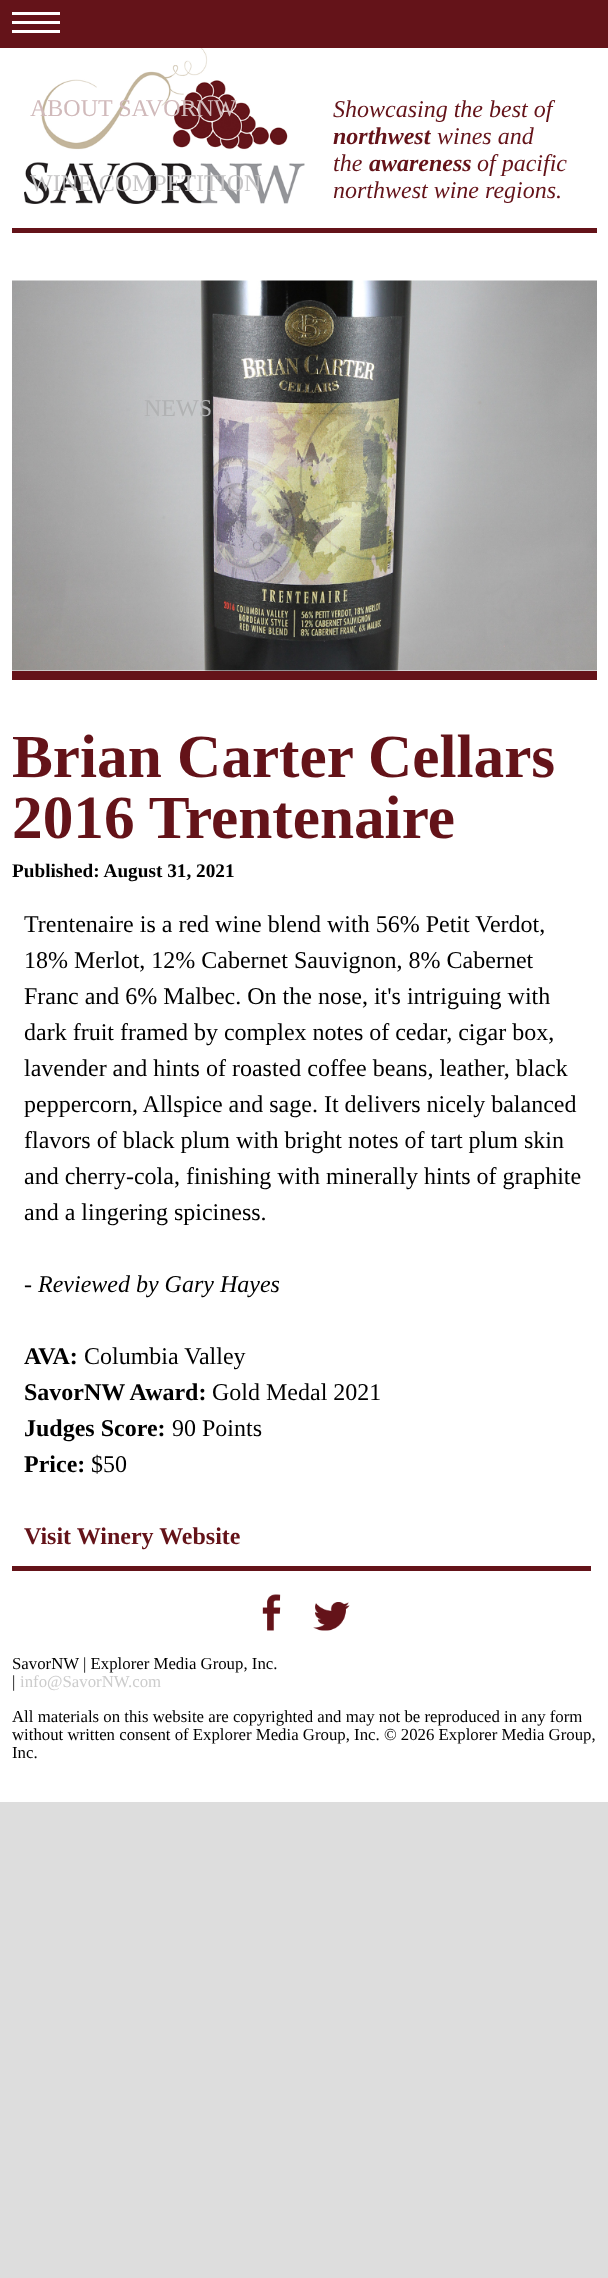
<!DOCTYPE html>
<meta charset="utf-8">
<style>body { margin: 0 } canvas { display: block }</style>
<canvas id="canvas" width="608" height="2278"></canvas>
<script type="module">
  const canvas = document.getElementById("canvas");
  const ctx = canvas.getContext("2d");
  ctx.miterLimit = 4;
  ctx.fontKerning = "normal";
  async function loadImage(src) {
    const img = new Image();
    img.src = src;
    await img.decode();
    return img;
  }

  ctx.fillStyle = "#dddddd";
  ctx.fillRect(0, 0, 608, 2278);
  ctx.fillStyle = "#ffffff";
  ctx.fillRect(0, 48, 608, 1754);
  ctx.fillStyle = "#641319";
  ctx.fillRect(12, 228, 585, 5);
  ctx.drawImage(await loadImage("img1.png"), 24, 48, 281, 156);
  ctx.font = "italic 24px Liberation Serif";
  ctx.fillText("Showcasing the best of", 333, 117);
  ctx.font = "italic bold 24px Liberation Serif";
  ctx.fillText("northwest", 333, 144);
  ctx.font = "italic 24px Liberation Serif";
  ctx.fillText("wines and", 437, 144);
  ctx.fillText("the", 333, 171);
  ctx.font = "italic bold 24px Liberation Serif";
  ctx.fillText("awareness", 369, 171);
  ctx.font = "italic 24px Liberation Serif";
  ctx.fillText("of pacific", 477, 171);
  ctx.fillText("northwest wine regions.", 333, 198);
  ctx.fillRect(12, 671, 585, 9);
  ctx.drawImage(await loadImage("img2.png"), 12, 280, 585, 391);
  ctx.font = "bold 61.25px Liberation Serif";
  ctx.fillText("Brian Carter Cellars", 12, 777);
  ctx.fillText("2016 Trentenaire", 12, 838);
  ctx.font = "bold 19.25px Liberation Serif";
  ctx.fillStyle = "#000000";
  ctx.fillText("Published: August 31, 2021", 12, 877);
  ctx.font = "24px Liberation Serif";
  ctx.fillText("Trentenaire is a red wine blend with 56% Petit Verdot,", 24, 932);
  ctx.fillText("18% Merlot, 12% Cabernet Sauvignon, 8% Cabernet", 24, 968);
  ctx.fillText("Franc and 6% Malbec. On the nose, it's intriguing with", 24, 1004);
  ctx.fillText("dark fruit framed by complex notes of cedar, cigar box,", 24, 1040);
  ctx.fillText("lavender and hints of roasted coffee beans, leather, black", 24, 1076);
  ctx.fillText("peppercorn, Allspice and sage. It delivers nicely balanced", 24, 1112);
  ctx.fillText("flavors of black plum with bright notes of tart plum skin", 24, 1148);
  ctx.fillText("and cherry-cola, finishing with minerally hints of graphite", 24, 1184);
  ctx.fillText("and a lingering spiciness.", 24, 1220);
  ctx.font = "italic 24px Liberation Serif";
  ctx.fillText("- Reviewed by Gary Hayes", 24, 1292);
  ctx.font = "bold 24px Liberation Serif";
  ctx.fillText("AVA:", 24, 1364);
  ctx.font = "24px Liberation Serif";
  ctx.fillText("Columbia Valley", 84, 1364);
  ctx.font = "bold 24px Liberation Serif";
  ctx.fillText("SavorNW Award:", 24, 1400);
  ctx.font = "24px Liberation Serif";
  ctx.fillText("Gold Medal 2021", 212, 1400);
  ctx.font = "bold 24px Liberation Serif";
  ctx.fillText("Judges Score:", 24, 1436);
  ctx.font = "24px Liberation Serif";
  ctx.fillText("90 Points", 172, 1436);
  ctx.font = "bold 24px Liberation Serif";
  ctx.fillText("Price:", 24, 1472);
  ctx.font = "24px Liberation Serif";
  ctx.fillText("$50", 91, 1472);
  ctx.font = "bold 24px Liberation Serif";
  ctx.fillStyle = "#641319";
  ctx.fillText("Visit Winery Website", 24, 1544);
  ctx.fillRect(0, 0, 608, 48);
  ctx.fillStyle = "#ffffff";
  ctx.fillRect(12, 30, 48, 3);
  ctx.fillRect(12, 21, 48, 3);
  ctx.fillRect(12, 12, 48, 3);
  ctx.font = "24px Liberation Serif";
  ctx.fillStyle = "#d1babb";
  ctx.fillText("ABOUT SAVORNW", 30, 116);
  ctx.fillStyle = "#c5c4c5";
  ctx.fillText("WINE COMPETITION", 30, 191);
  ctx.fillStyle = "#b1b2b3";
  ctx.fillText("NEWS", 144, 416);
  ctx.fillStyle = "#641319";
  ctx.fillRect(12, 1566, 579, 5);
  ctx.drawImage(await loadImage("img3.png"), 262, 1594, 19, 37);
  ctx.drawImage(await loadImage("img4.png"), 313, 1602, 37, 29);
  ctx.font = "16.8px Liberation Serif";
  ctx.fillStyle = "#000000";
  ctx.fillText("SavorNW | Explorer Media Group, Inc.", 12, 1669);
  ctx.fillText("|", 12, 1687);
  ctx.fillStyle = "#cccccc";
  ctx.fillText("info@SavorNW.com", 20, 1687);
  ctx.fillStyle = "#000000";
  ctx.fillText("All materials on this website are copyrighted and may not be reproduced in any form", 12, 1722);
  ctx.fillText("without written consent of Explorer Media Group, Inc. © 2026 Explorer Media Group,", 12, 1740);
  ctx.fillText("Inc.", 12, 1758);
</script>
